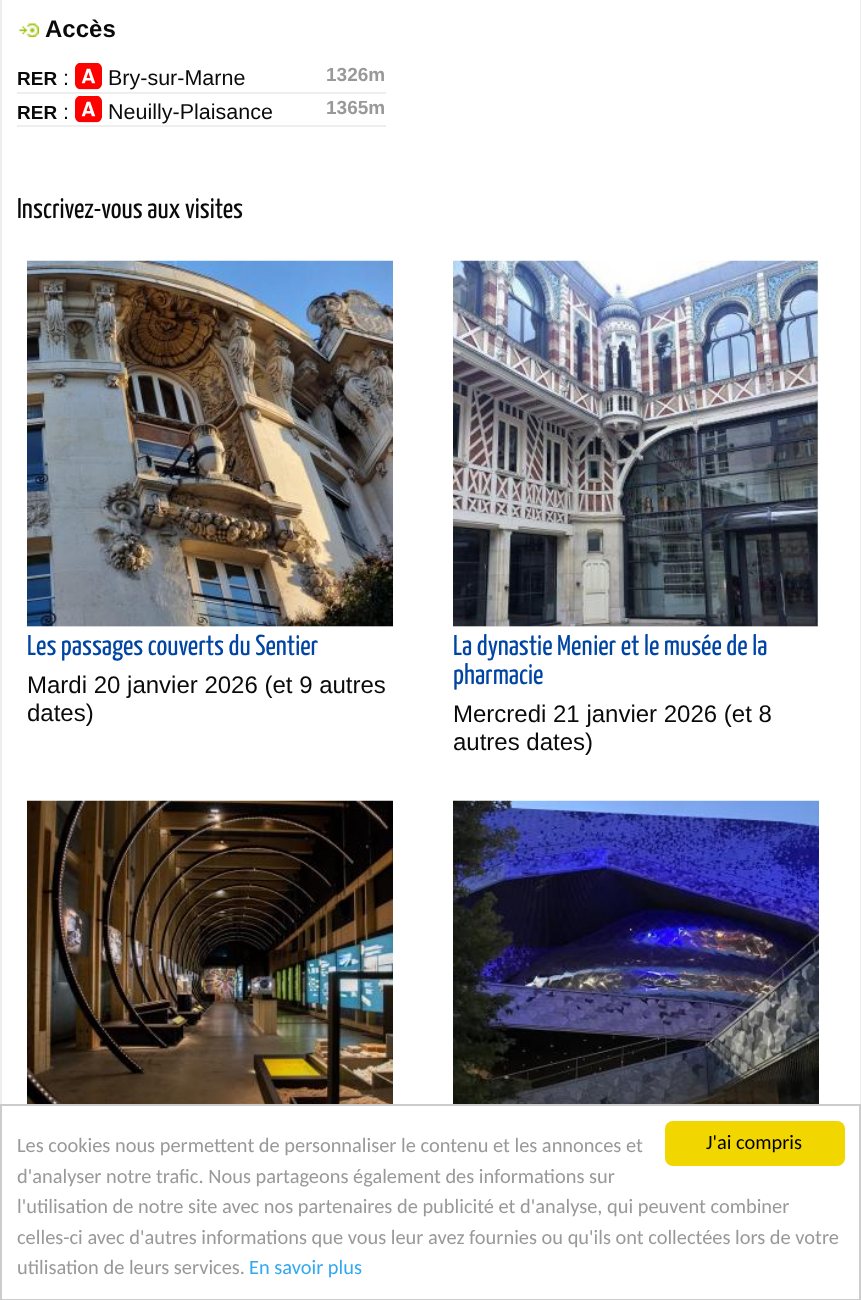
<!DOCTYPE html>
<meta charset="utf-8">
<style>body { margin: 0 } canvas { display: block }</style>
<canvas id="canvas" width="861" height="1300"></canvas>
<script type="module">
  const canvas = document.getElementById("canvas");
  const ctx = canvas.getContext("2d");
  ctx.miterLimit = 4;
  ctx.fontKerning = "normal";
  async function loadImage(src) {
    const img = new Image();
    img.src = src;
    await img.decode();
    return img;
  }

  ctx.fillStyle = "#ffffff";
  ctx.fillRect(0, 0, 861, 1300);
  ctx.fillStyle = "#eeeeee";
  ctx.fillRect(860, 0, 1, 1104);
  ctx.fillRect(0, 0, 2, 1104);
  ctx.drawImage(await loadImage("img1.png"), 19, 23, 20, 14);
  ctx.font = "bold 24px Liberation Sans";
  ctx.fillStyle = "#0a0a0a";
  ctx.fillText("Accès", 45, 37);
  ctx.fillStyle = "#eeeeee";
  ctx.fillRect(17, 92, 369, 2);
  ctx.font = "bold 19px Liberation Sans";
  ctx.fillStyle = "#0a0a0a";
  ctx.fillText("RER", 17, 85);
  ctx.font = "21.5px Liberation Sans";
  ctx.fillText(":", 63, 85);
  ctx.drawImage(await loadImage("img2.png"), 75, 63, 27, 27);
  ctx.fillText("Bry-sur-Marne", 108, 85);
  ctx.font = "bold 19px Liberation Sans";
  ctx.fillStyle = "#999999";
  ctx.fillText("1326m", 326, 81);
  ctx.fillStyle = "#eeeeee";
  ctx.fillRect(17, 125, 369, 2);
  ctx.fillStyle = "#0a0a0a";
  ctx.fillText("RER", 17, 119);
  ctx.font = "21.5px Liberation Sans";
  ctx.fillText(":", 63, 119);
  ctx.drawImage(await loadImage("img2.png"), 75, 96, 27, 27);
  ctx.fillText("Neuilly-Plaisance", 108, 119);
  ctx.font = "bold 19px Liberation Sans";
  ctx.fillStyle = "#999999";
  ctx.fillText("1365m", 326, 114);
  ctx.font = "28.75px Yanone Kaffeesatz";
  ctx.fillStyle = "#0a0a0a";
  ctx.fillText("Inscrivez-vous aux visites", 17, 218);
  ctx.fillStyle = "#eeeeee";
  ctx.fillRect(27, 626, 366, 1);
  ctx.drawImage(await loadImage("img3.png"), 27, 260, 366, 367);
  ctx.fillStyle = "#0045a3";
  ctx.fillText("Les passages couverts du Sentier", 27, 655);
  ctx.font = "24px Liberation Sans";
  ctx.fillStyle = "#0a0a0a";
  ctx.fillText("Mardi 20 janvier 2026 (et 9 autres", 27, 693);
  ctx.fillText("dates)", 27, 721);
  ctx.fillStyle = "#eeeeee";
  ctx.fillRect(453, 626, 366, 1);
  ctx.drawImage(await loadImage("img4.png"), 453, 260, 366, 367);
  ctx.font = "28.75px Yanone Kaffeesatz";
  ctx.fillStyle = "#0045a3";
  ctx.fillText("La dynastie Menier et le musée de la", 453, 655);
  ctx.fillText("pharmacie", 453, 684);
  ctx.font = "24px Liberation Sans";
  ctx.fillStyle = "#0a0a0a";
  ctx.fillText("Mercredi 21 janvier 2026 (et 8", 453, 722);
  ctx.fillText("autres dates)", 453, 750);
  ctx.drawImage(await loadImage("img5.png"), 27, 800, 366, 304);
  ctx.drawImage(await loadImage("img6.png"), 453, 800, 366, 304);
  ctx.strokeStyle = "#cccccc";
  ctx.lineWidth = 2;
  ctx.strokeRect(1, 1105, 859, 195);
  ctx.fillStyle = "#f1d600";
  ctx.beginPath();
  ctx.roundRect(665, 1121, 180, 45, 8);
  ctx.fill();
  ctx.font = "20.4px Carlito";
  ctx.fillStyle = "#000000";
  ctx.fillText("J'ai compris", 706, 1149);
  ctx.fillStyle = "#999999";
  ctx.fillText("Les cookies nous permettent de personnaliser le contenu et les annonces et", 17, 1152);
  ctx.fillText("d'analyser notre trafic. Nous partageons également des informations sur", 17, 1183);
  ctx.fillText("l'utilisation de notre site avec nos partenaires de publicité et d'analyse, qui peuvent combiner", 17, 1213);
  ctx.fillText("celles-ci avec d'autres informations que vous leur avez fournies ou qu'ils ont collectées lors de votre", 17, 1244);
  ctx.fillText("utilisation de leurs services.", 17, 1274);
  ctx.fillStyle = "#31a8f0";
  ctx.fillText("En savoir plus", 249, 1274);
</script>
